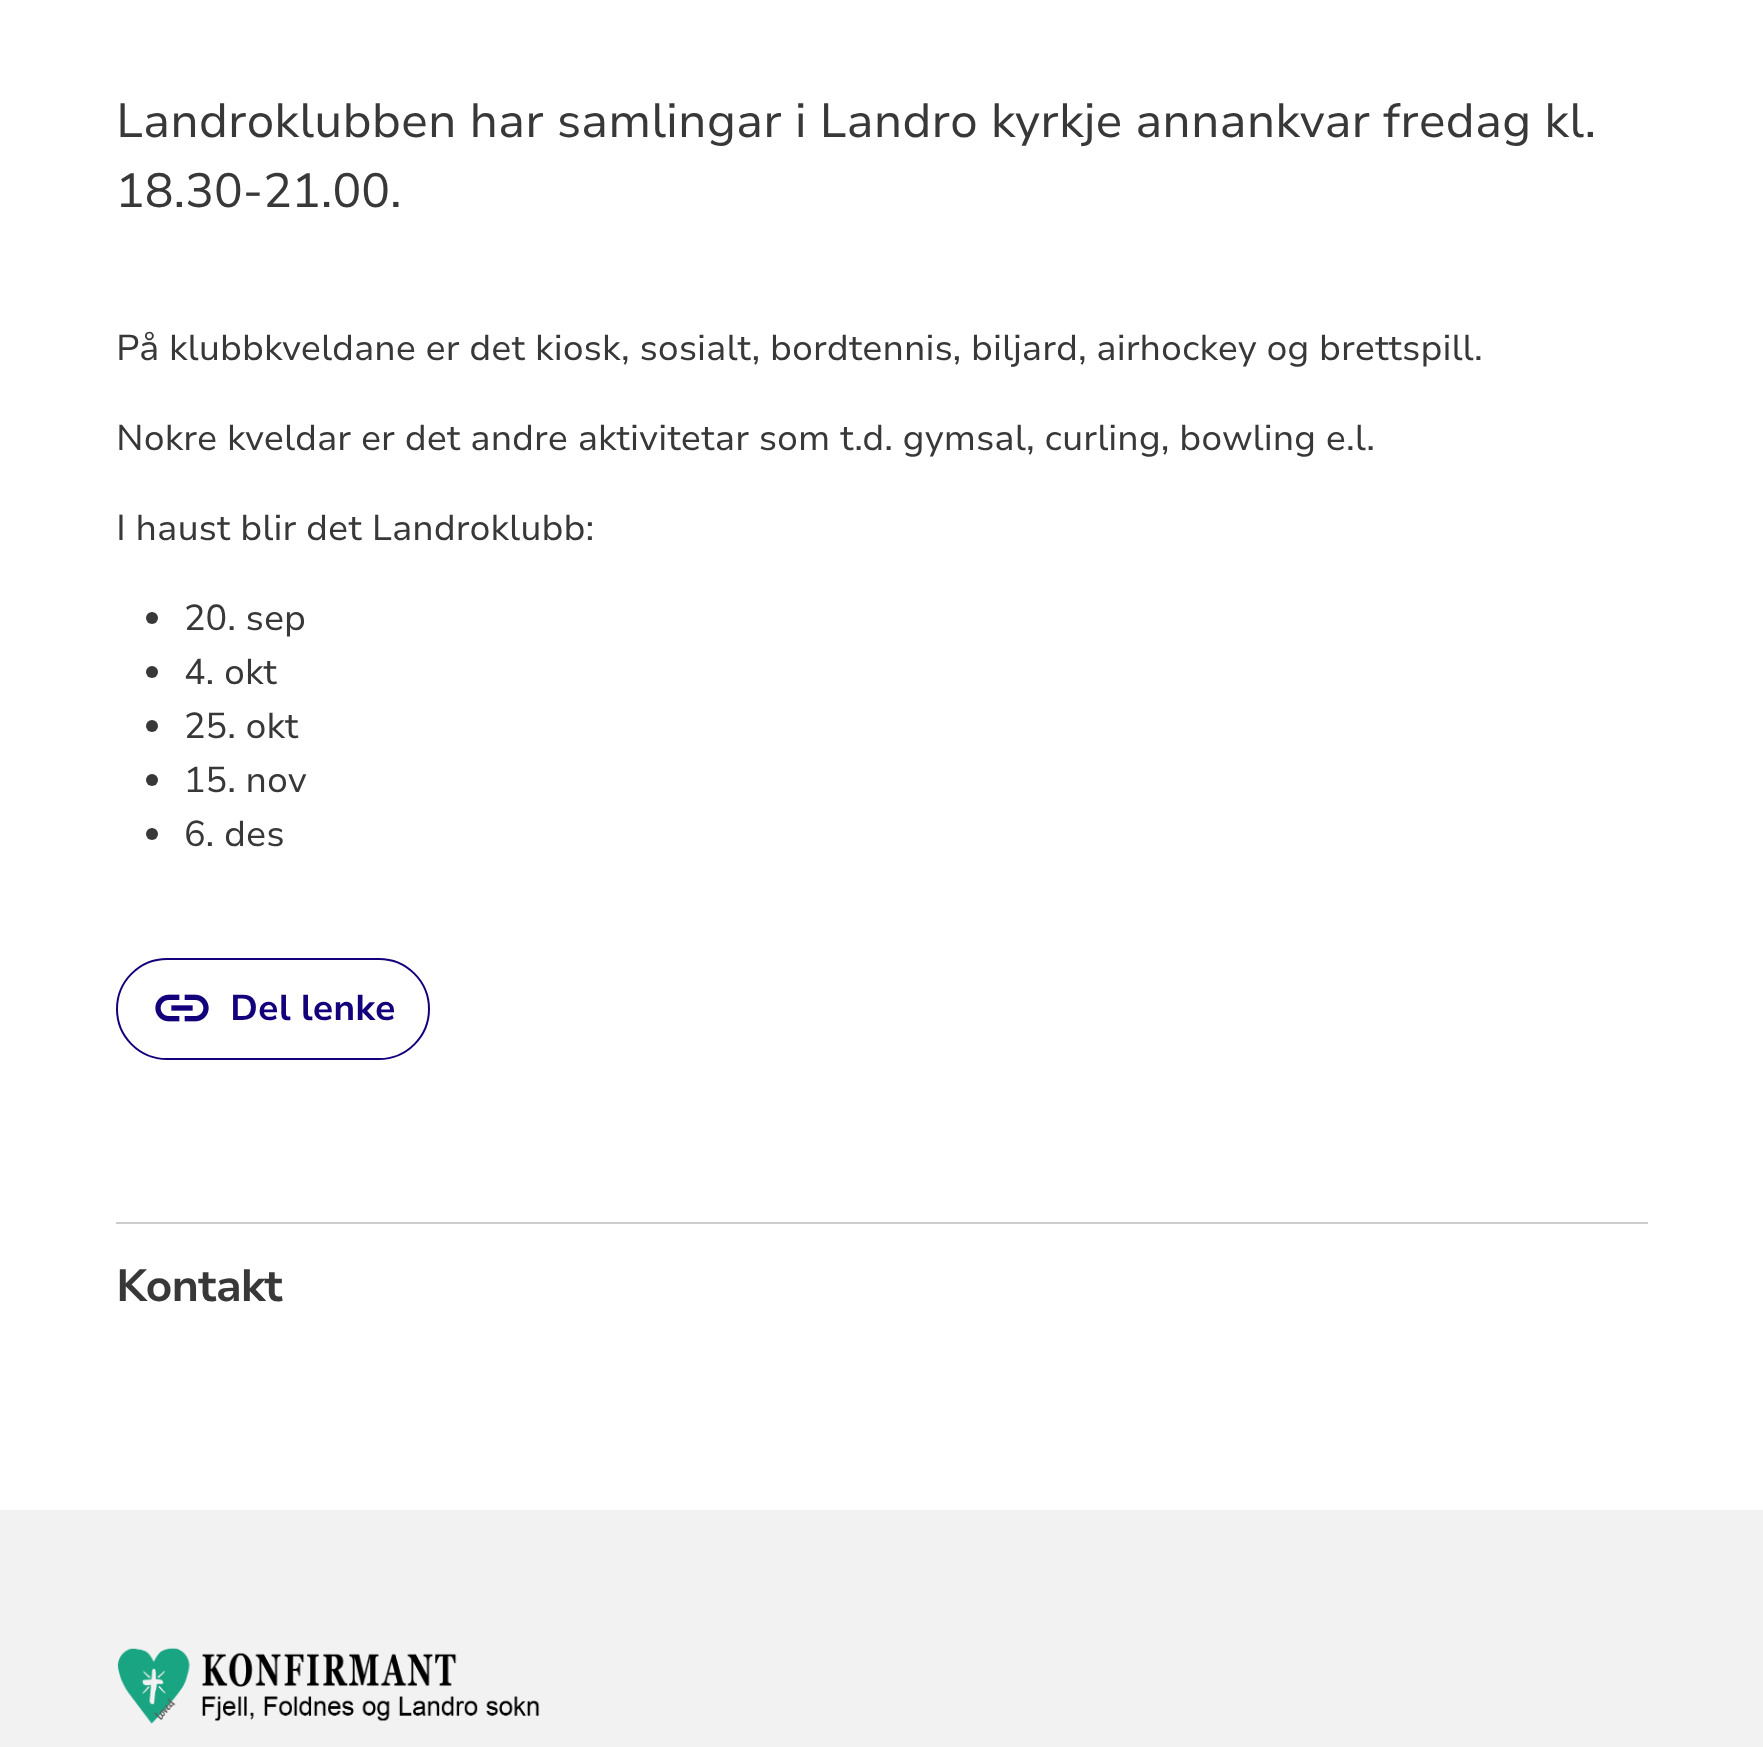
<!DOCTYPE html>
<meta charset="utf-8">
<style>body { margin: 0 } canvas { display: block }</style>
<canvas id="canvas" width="1763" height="1747"></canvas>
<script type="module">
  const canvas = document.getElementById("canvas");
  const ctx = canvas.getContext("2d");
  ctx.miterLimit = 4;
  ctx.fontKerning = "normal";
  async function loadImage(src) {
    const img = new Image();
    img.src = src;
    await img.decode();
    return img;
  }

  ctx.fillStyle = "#ffffff";
  ctx.fillRect(0, 0, 1763, 1747);
  ctx.font = "48px Nunito Sans";
  ctx.fillStyle = "#393838";
  ctx.fillText("Landroklubben har samlingar i Landro kyrkje annankvar fredag kl.", 116, 137);
  ctx.fillText("18.30-21.00.", 116, 207);
  ctx.font = "36px Nunito Sans";
  ctx.fillText("På klubbkveldane er det kiosk, sosialt, bordtennis, biljard, airhockey og brettspill.", 116, 360);
  ctx.fillText("Nokre kveldar er det andre aktivitetar som t.d. gymsal, curling, bowling e.l.", 116, 450);
  ctx.fillText("I haust blir det Landroklubb:", 116, 540);
  ctx.beginPath();
  ctx.arc(152, 618, 6, 0, Math.PI * 2);
  ctx.fill();
  ctx.fillText("20. sep", 184, 630);
  ctx.beginPath();
  ctx.arc(152, 672, 6, 0, Math.PI * 2);
  ctx.fill();
  ctx.fillText("4. okt", 184, 684);
  ctx.beginPath();
  ctx.arc(152, 726, 6, 0, Math.PI * 2);
  ctx.fill();
  ctx.fillText("25. okt", 184, 738);
  ctx.beginPath();
  ctx.arc(152, 780, 6, 0, Math.PI * 2);
  ctx.fill();
  ctx.fillText("15. nov", 184, 792);
  ctx.beginPath();
  ctx.arc(152, 834, 6, 0, Math.PI * 2);
  ctx.fill();
  ctx.fillText("6. des", 184, 846);
  ctx.beginPath();
  ctx.roundRect(117, 959, 312, 100, 50);
  ctx.strokeStyle = "#13017c";
  ctx.lineWidth = 2;
  ctx.stroke();
  ctx.drawImage(await loadImage("img1.png"), 155, 994, 54, 28);
  ctx.font = "bold 36px Nunito Sans";
  ctx.fillStyle = "#13017c";
  ctx.fillText("Del lenke", 230, 1020);
  ctx.fillStyle = "#cccccc";
  ctx.fillRect(116, 1222, 1532, 2);
  ctx.letterSpacing = "-1px";
  ctx.font = "bold 45px Nunito Sans";
  ctx.fillStyle = "#393838";
  ctx.fillText("Kontakt", 116, 1301);
  ctx.fillStyle = "#f2f2f2";
  ctx.fillRect(0, 1510, 1763, 237);
  ctx.drawImage(await loadImage("img2.png"), 117, 1647, 423, 77);
</script>
